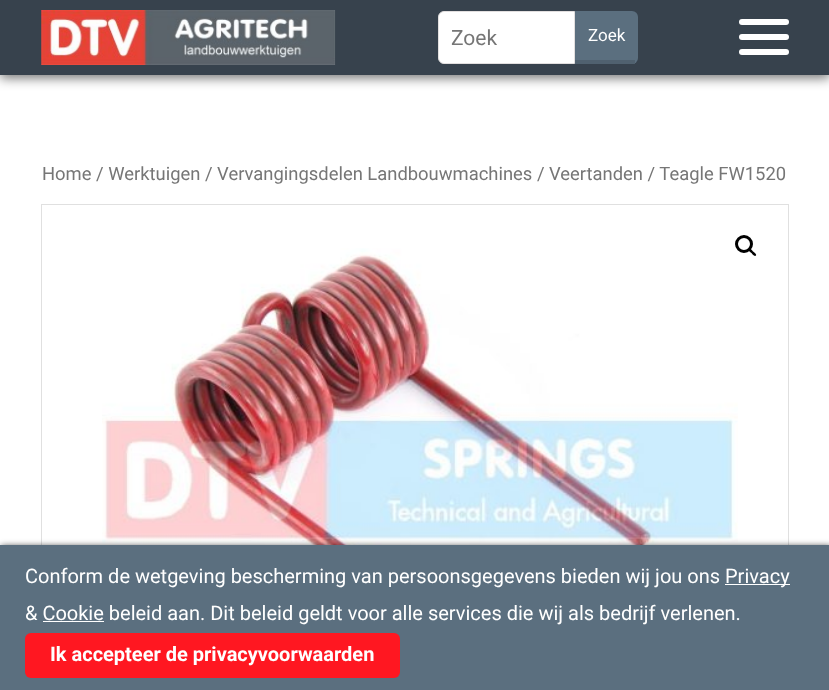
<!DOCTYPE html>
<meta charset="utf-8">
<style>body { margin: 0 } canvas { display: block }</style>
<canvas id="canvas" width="829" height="690"></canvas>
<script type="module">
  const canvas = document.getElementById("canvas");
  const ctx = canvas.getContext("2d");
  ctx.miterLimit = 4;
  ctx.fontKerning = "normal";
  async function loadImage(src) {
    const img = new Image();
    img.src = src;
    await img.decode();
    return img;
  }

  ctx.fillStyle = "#ffffff";
  ctx.fillRect(0, 0, 829, 690);
  ctx.fillStyle = "rgba(0, 0, 0, 0.55)";
  ctx.filter = "blur(6px)";
  ctx.beginPath();
  ctx.rect(0, 3, 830, 75);
  ctx.fill();
  ctx.filter = "none";
  ctx.fillStyle = "#37424d";
  ctx.fillRect(0, 0, 829, 75);
  ctx.drawImage(await loadImage("img1.png"), 41, 10, 295, 55);
  ctx.fillStyle = "#ffffff";
  ctx.beginPath();
  ctx.roundRect(438.5, 11.5, 136, 52, [5.5, 0, 0, 5.5]);
  ctx.fill();
  ctx.strokeStyle = "#e2dfdf";
  ctx.stroke();
  ctx.font = "21px Roboto";
  ctx.fillStyle = "#767676";
  ctx.fillText("Zoek", 451, 45);
  ctx.fillStyle = "#5b6f7f";
  ctx.beginPath();
  ctx.roundRect(575, 11, 63, 53, [0, 6, 6, 0]);
  ctx.fill();
  ctx.fillStyle = "#50616f";
  ctx.fillRect(575, 60, 60, 4);
  ctx.font = "17px Roboto";
  ctx.fillStyle = "#ffffff";
  ctx.fillText("Zoek", 588, 41);
  ctx.beginPath();
  ctx.roundRect(739, 19, 50, 6, 3);
  ctx.fill();
  ctx.beginPath();
  ctx.roundRect(739, 34, 50, 6, 3);
  ctx.fill();
  ctx.beginPath();
  ctx.roundRect(739, 49, 50, 6, 3);
  ctx.fill();
  ctx.font = "18.4px Roboto";
  ctx.fillStyle = "#767676";
  ctx.fillText("Home / Werktuigen / Vervangingsdelen Landbouwmachines / Veertanden / Teagle FW1520", 42, 180);
  ctx.strokeStyle = "#e0e0e0";
  ctx.strokeRect(41.5, 204.5, 747, 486);
  ctx.drawImage(await loadImage("img2.png"), 102, 248, 636, 297);
  ctx.beginPath();
  ctx.arc(744, 244, 7.5, 0, Math.PI * 2);
  ctx.strokeStyle = "#000000";
  ctx.lineWidth = 3;
  ctx.stroke();
  ctx.fillStyle = "#000000";
  ctx.beginPath();
  ctx.moveTo(748.5, 248.5);
  ctx.bezierCurveTo(750, 247, 752.5, 250.5, 753, 251.5);
  ctx.bezierCurveTo(754, 252, 757, 254.5, 756, 255.5);
  ctx.bezierCurveTo(754.5, 257, 752, 254, 751.5, 253);
  ctx.bezierCurveTo(750.5, 252.5, 747.5, 250, 748.5, 248.5);
  ctx.closePath();
  ctx.fill();
  ctx.fillStyle = "rgba(0, 0, 0, 0.75)";
  ctx.filter = "blur(3px)";
  ctx.beginPath();
  ctx.rect(1, 546, 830, 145);
  ctx.fill();
  ctx.filter = "none";
  ctx.fillStyle = "#5b6f7f";
  ctx.fillRect(0, 545, 829, 145);
  ctx.font = "20px Roboto";
  ctx.fillStyle = "#ffffff";
  ctx.fillText("Conform de wetgeving bescherming van persoonsgegevens bieden wij jou ons", 25, 583);
  ctx.fillRect(725, 584, 65, 1);
  ctx.fillText("Privacy", 725, 583);
  ctx.fillText("& Cookie beleid aan. Dit beleid geldt voor alle services die wij als bedrijf verlenen.", 25, 620);
  ctx.fillRect(43, 621, 61, 1);
  ctx.fillStyle = "#ff1721";
  ctx.beginPath();
  ctx.roundRect(25, 633, 375, 45, 6);
  ctx.fill();
  ctx.font = "bold 20px Roboto";
  ctx.fillStyle = "#ffffff";
  ctx.fillText("Ik accepteer de privacyvoorwaarden", 50, 661);
</script>
